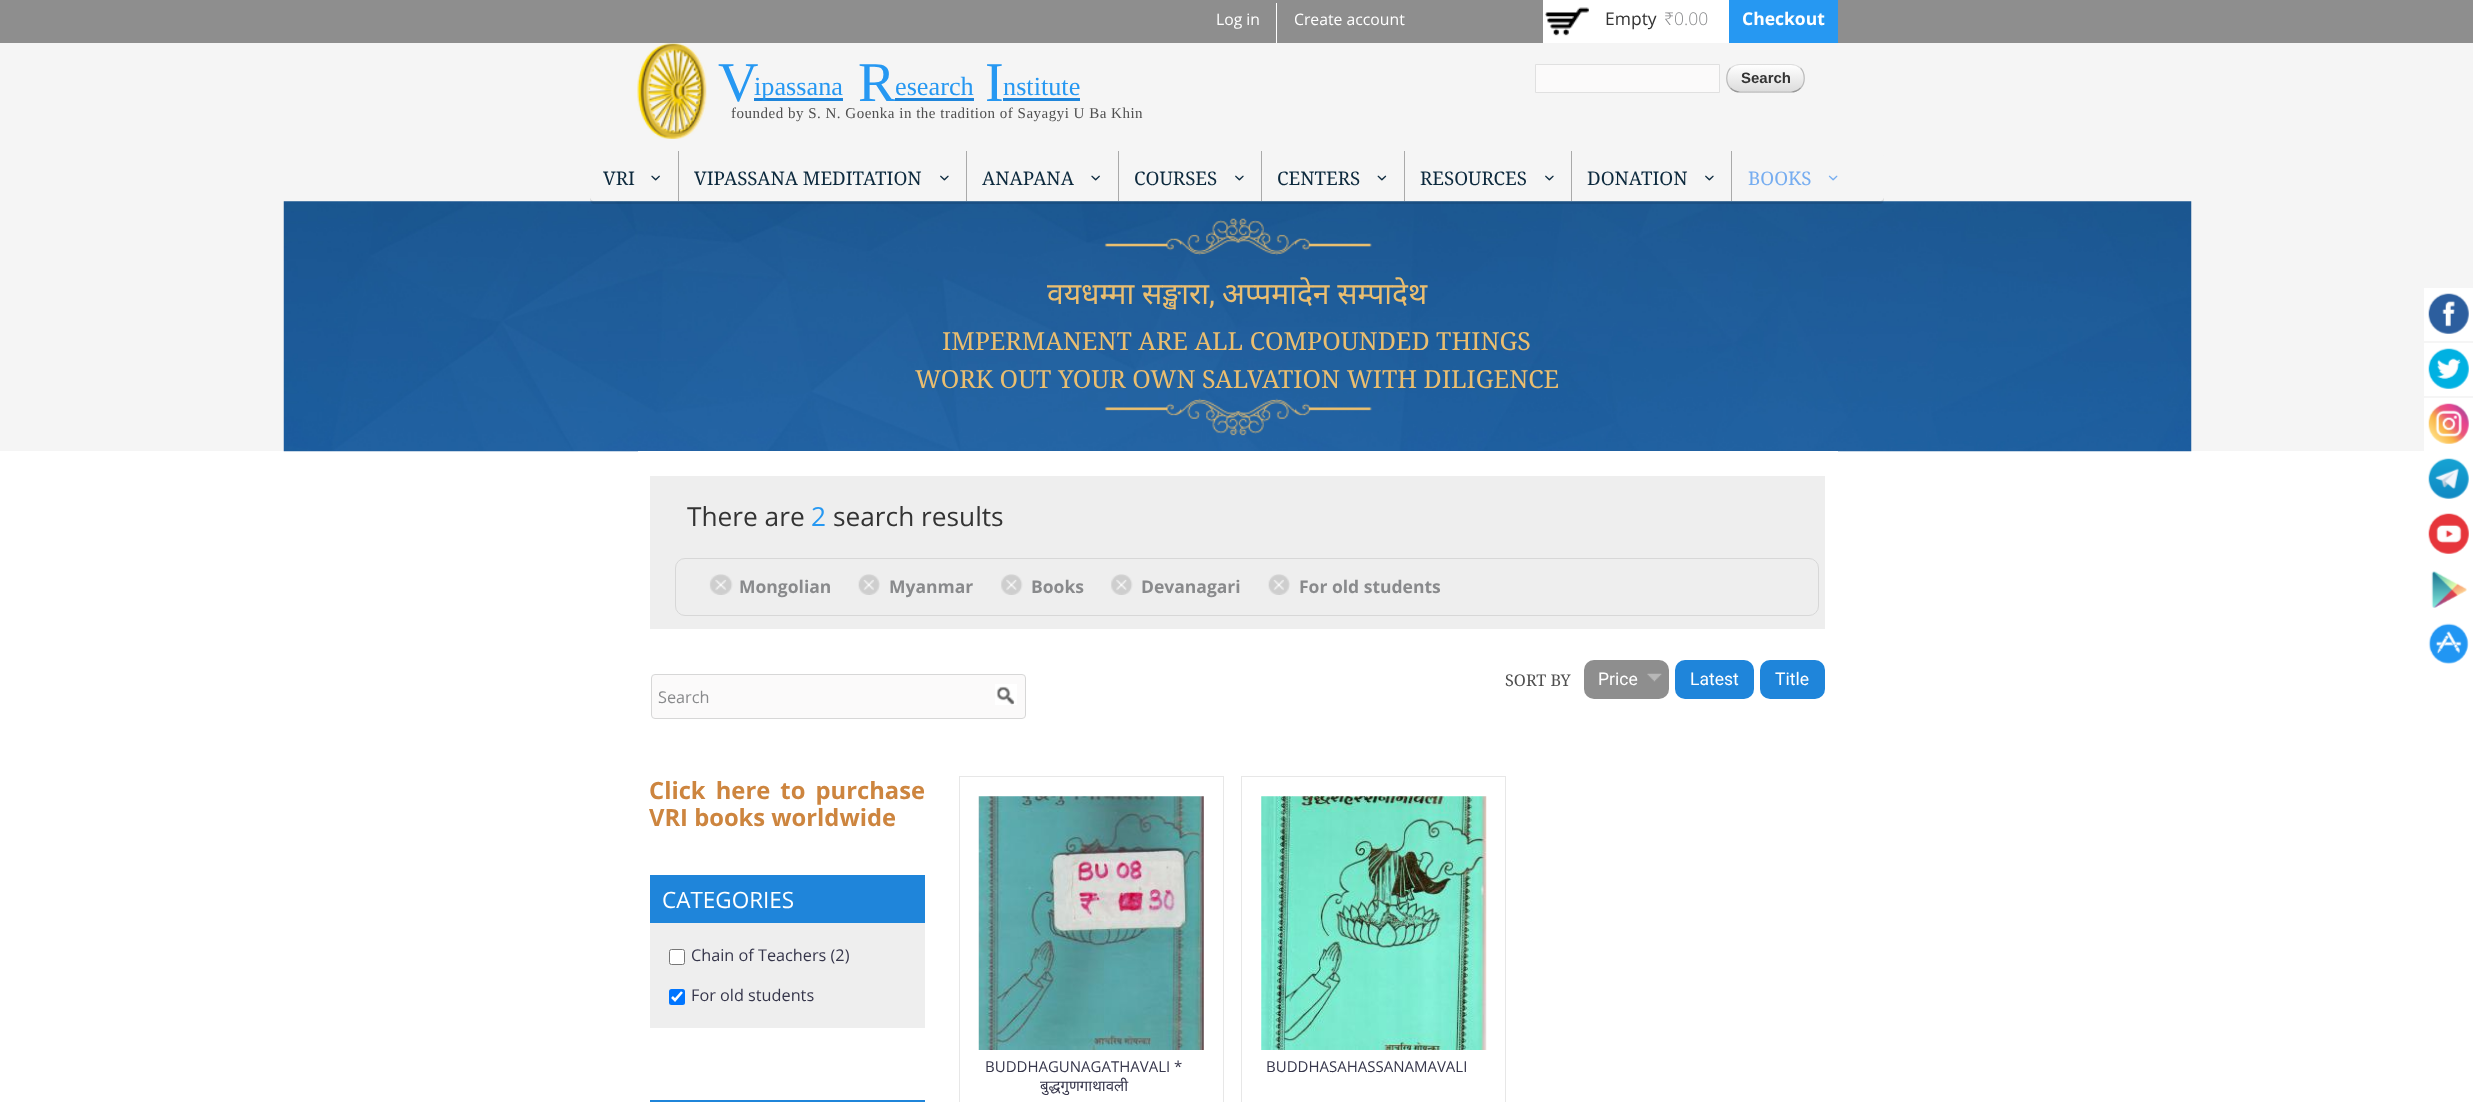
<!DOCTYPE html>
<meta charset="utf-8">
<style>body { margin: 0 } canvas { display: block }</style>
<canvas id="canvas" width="2473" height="1102"></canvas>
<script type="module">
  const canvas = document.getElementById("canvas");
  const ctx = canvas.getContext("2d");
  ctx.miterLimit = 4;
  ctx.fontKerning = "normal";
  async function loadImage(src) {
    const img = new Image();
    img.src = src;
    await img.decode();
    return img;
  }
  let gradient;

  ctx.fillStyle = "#f5f5f5";
  ctx.fillRect(0, 0, 2473, 1102);
  ctx.fillStyle = "#8e8e8e";
  ctx.fillRect(0, 0, 2473, 43);
  ctx.fillStyle = "#ffffff";
  ctx.fillRect(1276, 3, 1, 40);
  ctx.font = "15.75px Open Sans";
  ctx.fillText("Log in", 1216, 25);
  ctx.fillText("Create account", 1294, 25);
  ctx.fillRect(1543, 0, 186, 43);
  ctx.drawImage(await loadImage("img1.png"), 1545, 7, 44, 29);
  ctx.font = "17.5px Open Sans";
  ctx.fillStyle = "#333333";
  ctx.fillText("Empty", 1605, 25);
  ctx.font = "300 17.5px Noto Sans";
  ctx.fillStyle = "#898a8c";
  ctx.fillText("₹", 1664, 25);
  ctx.font = "300 17.5px Open Sans";
  ctx.fillText("0.00", 1674, 25);
  ctx.fillStyle = "#2698f2";
  ctx.fillRect(1729, 0, 109, 43);
  ctx.font = "bold 17.5px Open Sans";
  ctx.fillStyle = "#ffffff";
  ctx.fillText("Checkout", 1742, 25);
  ctx.drawImage(await loadImage("img2.png"), 637, 43, 70, 96);
  ctx.font = "56px Liberation Serif";
  ctx.fillStyle = "#2698f2";
  ctx.fillText("V", 718, 101);
  ctx.fillStyle = "#1f85da";
  ctx.fillRect(754, 98, 89, 3);
  ctx.font = "26.25px Liberation Serif";
  ctx.fillStyle = "#2698f2";
  ctx.fillText("ipassana", 754, 95);
  ctx.font = "56px Liberation Serif";
  ctx.fillText("R", 858, 101);
  ctx.font = "26.25px Liberation Serif";
  ctx.fillText("esearch", 895, 95);
  ctx.fillStyle = "#1f85da";
  ctx.fillRect(895, 98, 79, 3);
  ctx.font = "56px Liberation Serif";
  ctx.fillStyle = "#2698f2";
  ctx.fillText("I", 985, 101);
  ctx.font = "26.25px Liberation Serif";
  ctx.fillText("nstitute", 1003, 95);
  ctx.fillStyle = "#1f85da";
  ctx.fillRect(1003, 98, 77, 3);
  ctx.letterSpacing = "0.5px";
  ctx.font = "15px Liberation Serif";
  ctx.fillStyle = "#4f4f4f";
  ctx.fillText("founded by S. N. Goenka in the tradition of Sayagyi U Ba Khin", 731, 118);
  ctx.fillStyle = "#fbfafa";
  ctx.beginPath();
  ctx.rect(1535.5, 64.5, 184, 28);
  ctx.fill();
  ctx.strokeStyle = "#e0e0e0";
  ctx.stroke();
  ctx.save();
  ctx.beginPath();
  ctx.roundRect(1726, 64, 79, 29, 14);
  ctx.clip();
  gradient = ctx.createLinearGradient(1728, 65, 1728, 91);
  gradient.addColorStop(0, "#ffffff");
  gradient.addColorStop(1, "#dddddd");
  ctx.fillStyle = gradient;
  ctx.fillRect(1726, 65, 79, 26);
  gradient = ctx.createLinearGradient(1728, 91, 1728, 118);
  gradient.addColorStop(0, "#ffffff");
  gradient.addColorStop(1, "#dddddd");
  ctx.fillStyle = gradient;
  ctx.fillRect(1726, 91, 79, 2);
  ctx.restore();
  ctx.beginPath();
  ctx.moveTo(1730.5, 68);
  ctx.bezierCurveTo(1733, 66, 1736.5, 64.5, 1740, 64.5);
  ctx.lineTo(1791, 64.5);
  ctx.bezierCurveTo(1794.5, 64.5, 1798, 66, 1800.5, 68);
  ctx.strokeStyle = "#dddddd";
  ctx.lineWidth = 1.2;
  ctx.stroke();
  ctx.beginPath();
  ctx.moveTo(1800.5, 68);
  ctx.bezierCurveTo(1805.5, 73.5, 1805.5, 83, 1800.5, 88);
  ctx.strokeStyle = "#bbbbbb";
  ctx.stroke();
  ctx.beginPath();
  ctx.moveTo(1800.5, 88);
  ctx.bezierCurveTo(1798, 90.5, 1794.5, 92, 1791, 92);
  ctx.lineTo(1740, 92);
  ctx.bezierCurveTo(1736.5, 92, 1733, 90.5, 1730.5, 88);
  ctx.strokeStyle = "#999999";
  ctx.stroke();
  ctx.beginPath();
  ctx.moveTo(1730.5, 88);
  ctx.bezierCurveTo(1725.5, 83, 1725.5, 73.5, 1730.5, 68);
  ctx.strokeStyle = "#bbbbbb";
  ctx.stroke();
  ctx.letterSpacing = "0px";
  ctx.font = "bold 15px Liberation Sans";
  ctx.fillStyle = "#333333";
  ctx.fillText("Search", 1741, 83);
  ctx.fillStyle = "#ffffff";
  ctx.fillRect(0, 451, 2473, 651);
  ctx.drawImage(await loadImage("img7.png"), 283, 201, 1909, 251);
  ctx.fillStyle = "rgba(0, 0, 0, 0.1)";
  ctx.beginPath();
  ctx.moveTo(590, 196);
  ctx.lineTo(590, 199);
  ctx.bezierCurveTo(590, 202, 592, 204, 595, 204);
  ctx.lineTo(1879, 204);
  ctx.bezierCurveTo(1882, 204, 1884, 202, 1884, 199);
  ctx.lineTo(1884, 157);
  ctx.lineTo(1884, 196);
  ctx.bezierCurveTo(1884, 199, 1882, 201, 1879, 201);
  ctx.lineTo(595, 201);
  ctx.bezierCurveTo(592, 201, 590, 199, 590, 196);
  ctx.closePath();
  ctx.fill();
  ctx.fillStyle = "#f5f5f5";
  ctx.beginPath();
  ctx.roundRect(590, 151, 1294, 50, 5);
  ctx.fill();
  ctx.fillStyle = "#aaaaaa";
  ctx.fillRect(678, 151, 1, 50);
  ctx.font = "18.75px Noto Serif";
  ctx.fillStyle = "#0c293d";
  ctx.fillText("VRI", 603, 185);
  ctx.drawImage(await loadImage("img3.png"), 651, 175, 9, 6);
  ctx.fillStyle = "#aaaaaa";
  ctx.fillRect(966, 151, 1, 50);
  ctx.fillStyle = "#0c293d";
  ctx.fillText("VIPASSANA MEDITATION", 694, 185);
  ctx.drawImage(await loadImage("img4.png"), 940, 175, 9, 6);
  ctx.fillStyle = "#aaaaaa";
  ctx.fillRect(1118, 151, 1, 50);
  ctx.fillStyle = "#0c293d";
  ctx.fillText("ANAPANA", 982, 185);
  ctx.drawImage(await loadImage("img3.png"), 1091, 175, 9, 6);
  ctx.fillStyle = "#aaaaaa";
  ctx.fillRect(1261, 151, 1, 50);
  ctx.fillStyle = "#0c293d";
  ctx.fillText("COURSES", 1134, 185);
  ctx.drawImage(await loadImage("img4.png"), 1235, 175, 9, 6);
  ctx.fillStyle = "#aaaaaa";
  ctx.fillRect(1404, 151, 1, 50);
  ctx.fillStyle = "#0c293d";
  ctx.fillText("CENTERS", 1277, 185);
  ctx.drawImage(await loadImage("img5.png"), 1377, 175, 10, 6);
  ctx.fillStyle = "#aaaaaa";
  ctx.fillRect(1571, 151, 1, 50);
  ctx.fillStyle = "#0c293d";
  ctx.fillText("RESOURCES", 1420, 185);
  ctx.drawImage(await loadImage("img4.png"), 1545, 175, 9, 6);
  ctx.fillStyle = "#aaaaaa";
  ctx.fillRect(1731, 151, 1, 50);
  ctx.fillStyle = "#0c293d";
  ctx.fillText("DONATION", 1587, 185);
  ctx.drawImage(await loadImage("img4.png"), 1705, 175, 9, 6);
  ctx.fillStyle = "#76adf0";
  ctx.fillText("BOOKS", 1748, 185);
  ctx.drawImage(await loadImage("img6.png"), 1828, 175, 10, 6);
  ctx.font = "30px Noto Sans";
  ctx.fillStyle = "#eabe70";
  ctx.fillText("वयधम्मा सङ्खारा", 1047, 304);
  ctx.font = "30px Roboto";
  ctx.fillText(",", 1209, 304);
  ctx.font = "30px Noto Sans";
  ctx.fillText("अप्पमादेन सम्पादेथ", 1222, 304);
  ctx.font = "25px Noto Serif";
  ctx.fillText("IMPERMANENT ARE ALL COMPOUNDED THINGS", 942, 350);
  ctx.fillText("WORK OUT YOUR OWN SALVATION WITH DILIGENCE", 915, 388);
  ctx.fillStyle = "#ffffff";
  ctx.fillRect(638, 451, 1200, 1);
  ctx.fillStyle = "#eeeeee";
  ctx.fillRect(650, 476, 1175, 153);
  ctx.font = "26.25px Open Sans";
  ctx.fillStyle = "#333333";
  ctx.fillText("There are", 687, 526);
  ctx.fillStyle = "#2698f2";
  ctx.fillText("2", 811, 526);
  ctx.fillStyle = "#333333";
  ctx.fillText("search results", 833, 526);
  ctx.beginPath();
  ctx.roundRect(675.5, 558.5, 1143, 57, 9.5);
  ctx.strokeStyle = "#d7d7d7";
  ctx.lineWidth = 1;
  ctx.stroke();
  ctx.drawImage(await loadImage("img8.png"), 709, 574, 24, 21);
  ctx.font = "bold 17.5px Open Sans";
  ctx.fillStyle = "#898a8c";
  ctx.fillText("Mongolian", 739, 593);
  ctx.drawImage(await loadImage("img9.png"), 858, 574, 22, 21);
  ctx.fillText("Myanmar", 889, 593);
  ctx.drawImage(await loadImage("img10.png"), 1001, 574, 22, 21);
  ctx.fillText("Books", 1031, 593);
  ctx.drawImage(await loadImage("img10.png"), 1111, 574, 22, 21);
  ctx.fillText("Devanagari", 1141, 593);
  ctx.drawImage(await loadImage("img9.png"), 1268, 574, 22, 21);
  ctx.fillText("For old students", 1299, 593);
  ctx.font = "16.25px Noto Serif";
  ctx.fillStyle = "#4f4f4f";
  ctx.fillText("SORT BY", 1505, 686);
  ctx.fillStyle = "#8e8e8e";
  ctx.beginPath();
  ctx.roundRect(1584, 660, 85, 39, 10);
  ctx.fill();
  ctx.font = "17.5px Roboto";
  ctx.fillStyle = "#ffffff";
  ctx.fillText("Price", 1598, 685);
  ctx.drawImage(await loadImage("img11.png"), 1647, 673, 15, 9);
  ctx.fillStyle = "#1f85da";
  ctx.beginPath();
  ctx.roundRect(1675, 660, 79, 39, 10);
  ctx.fill();
  ctx.fillStyle = "#ffffff";
  ctx.fillText("Latest", 1690, 685);
  ctx.fillStyle = "#1f85da";
  ctx.beginPath();
  ctx.roundRect(1760, 660, 65, 39, 10);
  ctx.fill();
  ctx.fillStyle = "#ffffff";
  ctx.fillText("Title", 1775, 685);
  ctx.fillStyle = "#fbfafa";
  ctx.beginPath();
  ctx.roundRect(651.5, 674.5, 374, 44, 3.5);
  ctx.fill();
  ctx.stroke();
  ctx.font = "16.25px Open Sans";
  ctx.fillStyle = "#898a8c";
  ctx.fillText("Search", 658, 703);
  ctx.drawImage(await loadImage("img12.png"), 995, 684, 22, 21);
  ctx.wordSpacing = "4px";
  ctx.font = "bold 23.75px Open Sans";
  ctx.fillStyle = "#cd853f";
  ctx.fillText("Click here to purchase", 649, 799);
  ctx.wordSpacing = "0px";
  ctx.fillText("VRI books worldwide", 649, 826);
  ctx.fillStyle = "#1f85da";
  ctx.fillRect(650, 875, 275, 48);
  ctx.font = "22.5px Open Sans";
  ctx.fillStyle = "#ffffff";
  ctx.fillText("CATEGORIES", 662, 908);
  ctx.fillStyle = "#eeeeee";
  ctx.fillRect(650, 923, 275, 105);
  ctx.fillStyle = "#ffffff";
  ctx.beginPath();
  ctx.roundRect(669.5, 949.5, 15, 15, 2);
  ctx.fill();
  ctx.strokeStyle = "#767676";
  ctx.stroke();
  ctx.font = "16.25px Open Sans";
  ctx.fillStyle = "#36364b";
  ctx.fillText("Chain of Teachers (2)", 691, 961);
  ctx.fillStyle = "#0075ff";
  ctx.beginPath();
  ctx.roundRect(669, 989, 16, 16, 2.5);
  ctx.fill();
  ctx.beginPath();
  ctx.moveTo(672, 997);
  ctx.lineTo(675, 1000);
  ctx.lineTo(682, 992);
  ctx.strokeStyle = "#ffffff";
  ctx.lineWidth = 2.6;
  ctx.stroke();
  ctx.fillStyle = "#36364b";
  ctx.fillText("For old students", 691, 1001);
  ctx.fillStyle = "#1f85da";
  ctx.fillRect(650, 1100, 275, 2);
  ctx.strokeStyle = "#e7e7e7";
  ctx.lineWidth = 1;
  ctx.strokeRect(959.5, 776.5, 264, 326);
  ctx.drawImage(await loadImage("img13.png"), 978, 796, 226, 254);
  ctx.font = "15px Open Sans";
  ctx.fillStyle = "#36364b";
  ctx.fillText("BUDDHAGUNAGATHAVALI *", 985, 1072);
  ctx.font = "15px Noto Sans";
  ctx.fillText("बुद्धगुणगाथावली", 1040, 1091);
  ctx.strokeRect(1241.5, 776.5, 264, 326);
  ctx.drawImage(await loadImage("img14.png"), 1261, 796, 226, 254);
  ctx.font = "15px Open Sans";
  ctx.fillText("BUDDHASAHASSANAMAVALI", 1266, 1072);
  ctx.fillStyle = "#ffffff";
  ctx.fillRect(2424, 288, 49, 53);
  ctx.drawImage(await loadImage("img15.png"), 2428, 293, 41, 41);
  ctx.fillRect(2424, 343, 49, 53);
  ctx.drawImage(await loadImage("img16.png"), 2428, 348, 41, 41);
  ctx.fillRect(2424, 398, 49, 53);
  ctx.drawImage(await loadImage("img17.png"), 2428, 403, 41, 41);
  ctx.drawImage(await loadImage("img18.png"), 2428, 458, 41, 41);
  ctx.drawImage(await loadImage("img19.png"), 2428, 513, 41, 41);
  ctx.drawImage(await loadImage("img20.png"), 2431, 571, 36, 37);
  ctx.drawImage(await loadImage("img21.png"), 2428, 623, 41, 41);
</script>
